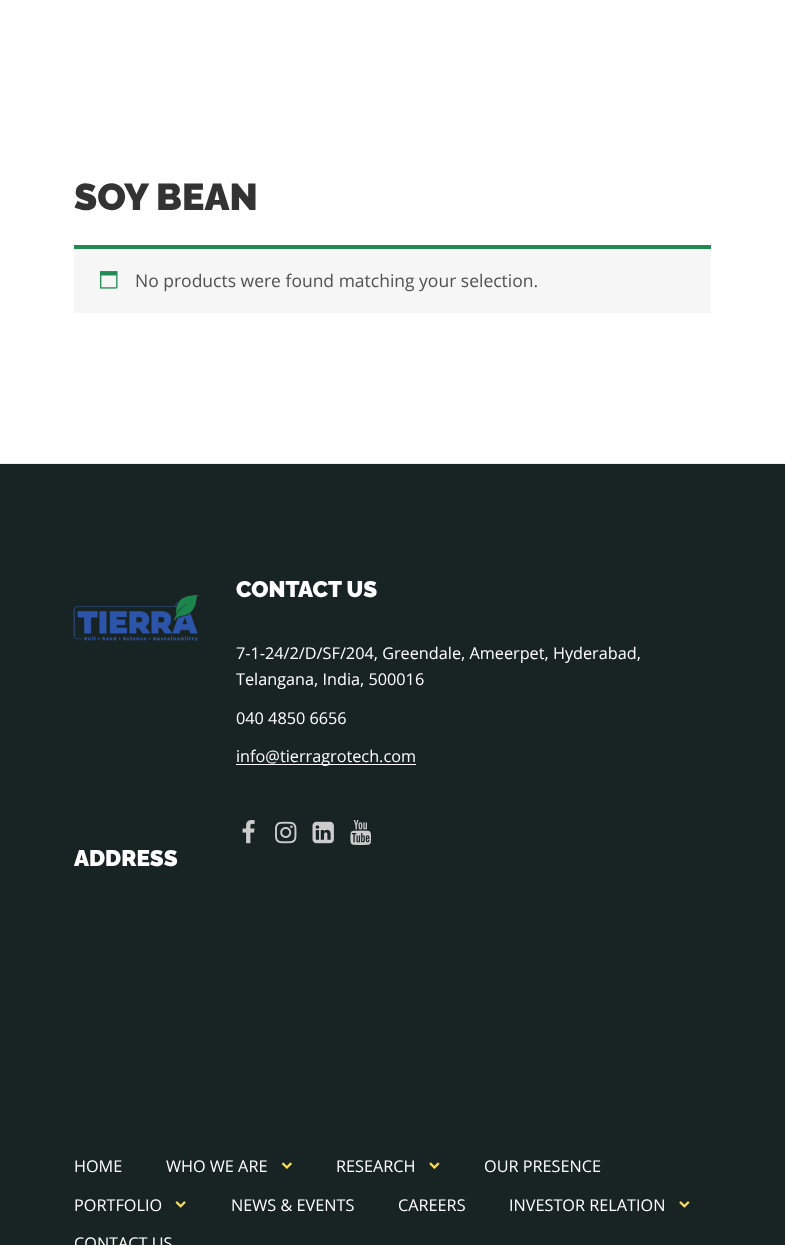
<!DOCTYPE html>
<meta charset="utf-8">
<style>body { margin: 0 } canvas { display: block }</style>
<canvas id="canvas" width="785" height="1245"></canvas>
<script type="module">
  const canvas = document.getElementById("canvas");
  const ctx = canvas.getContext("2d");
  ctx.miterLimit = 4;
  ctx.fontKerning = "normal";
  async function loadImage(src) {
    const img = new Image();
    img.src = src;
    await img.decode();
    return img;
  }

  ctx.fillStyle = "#ffffff";
  ctx.fillRect(0, 0, 785, 1245);
  ctx.font = "900 37.5px Raleway";
  ctx.fillStyle = "#333333";
  ctx.fillText("SOY BEAN", 74, 210);
  ctx.fillStyle = "#f7f6f7";
  ctx.fillRect(74, 249, 637, 64);
  ctx.fillStyle = "#218952";
  ctx.fillRect(74, 245, 637, 4);
  ctx.drawImage(await loadImage("img1.png"), 100, 271, 18, 18);
  ctx.font = "17.5px Open Sans";
  ctx.fillStyle = "#515151";
  ctx.fillText("No products were found matching your selection.", 135, 287);
  ctx.fillStyle = "#182323";
  ctx.fillRect(0, 464, 785, 781);
  ctx.fillStyle = "#eeeeee";
  ctx.fillRect(0, 463, 785, 1);
  ctx.drawImage(await loadImage("img2.png"), 73, 595, 126, 47);
  ctx.font = "900 22.5px Raleway";
  ctx.fillStyle = "#ffffff";
  ctx.fillText("CONTACT US", 236, 597);
  ctx.font = "16.25px Open Sans";
  ctx.fillText("7-1-24/2/D/SF/204, Greendale, Ameerpet, Hyderabad,", 236, 659);
  ctx.fillText("Telangana, India, 500016", 236, 685);
  ctx.fillText("040 4850 6656", 236, 724);
  ctx.fillRect(236, 764, 180, 1);
  ctx.fillText("info@tierragrotech.com", 236, 762);
  ctx.drawImage(await loadImage("img3.png"), 242, 820, 13, 24);
  ctx.drawImage(await loadImage("img4.png"), 275, 821, 22, 23);
  ctx.drawImage(await loadImage("img5.png"), 312, 821, 22, 23);
  ctx.drawImage(await loadImage("img6.png"), 350, 820, 22, 25);
  ctx.font = "900 22.5px Raleway";
  ctx.fillText("ADDRESS", 74, 866);
  ctx.font = "16.25px Open Sans";
  ctx.fillText("HOME", 74, 1172);
  ctx.fillText("WHO WE ARE", 166, 1172);
  ctx.drawImage(await loadImage("img7.png"), 281, 1162, 11, 7);
  ctx.fillText("RESEARCH", 336, 1172);
  ctx.drawImage(await loadImage("img8.png"), 429, 1162, 11, 7);
  ctx.fillText("OUR PRESENCE", 484, 1172);
  ctx.fillText("PORTFOLIO", 74, 1211);
  ctx.drawImage(await loadImage("img9.png"), 175, 1201, 11, 7);
  ctx.fillText("NEWS & EVENTS", 231, 1211);
  ctx.fillText("CAREERS", 398, 1211);
  ctx.fillText("INVESTOR RELATION", 509, 1211);
  ctx.drawImage(await loadImage("img10.png"), 679, 1201, 11, 7);
  ctx.fillText("CONTACT US", 74, 1249);
</script>
